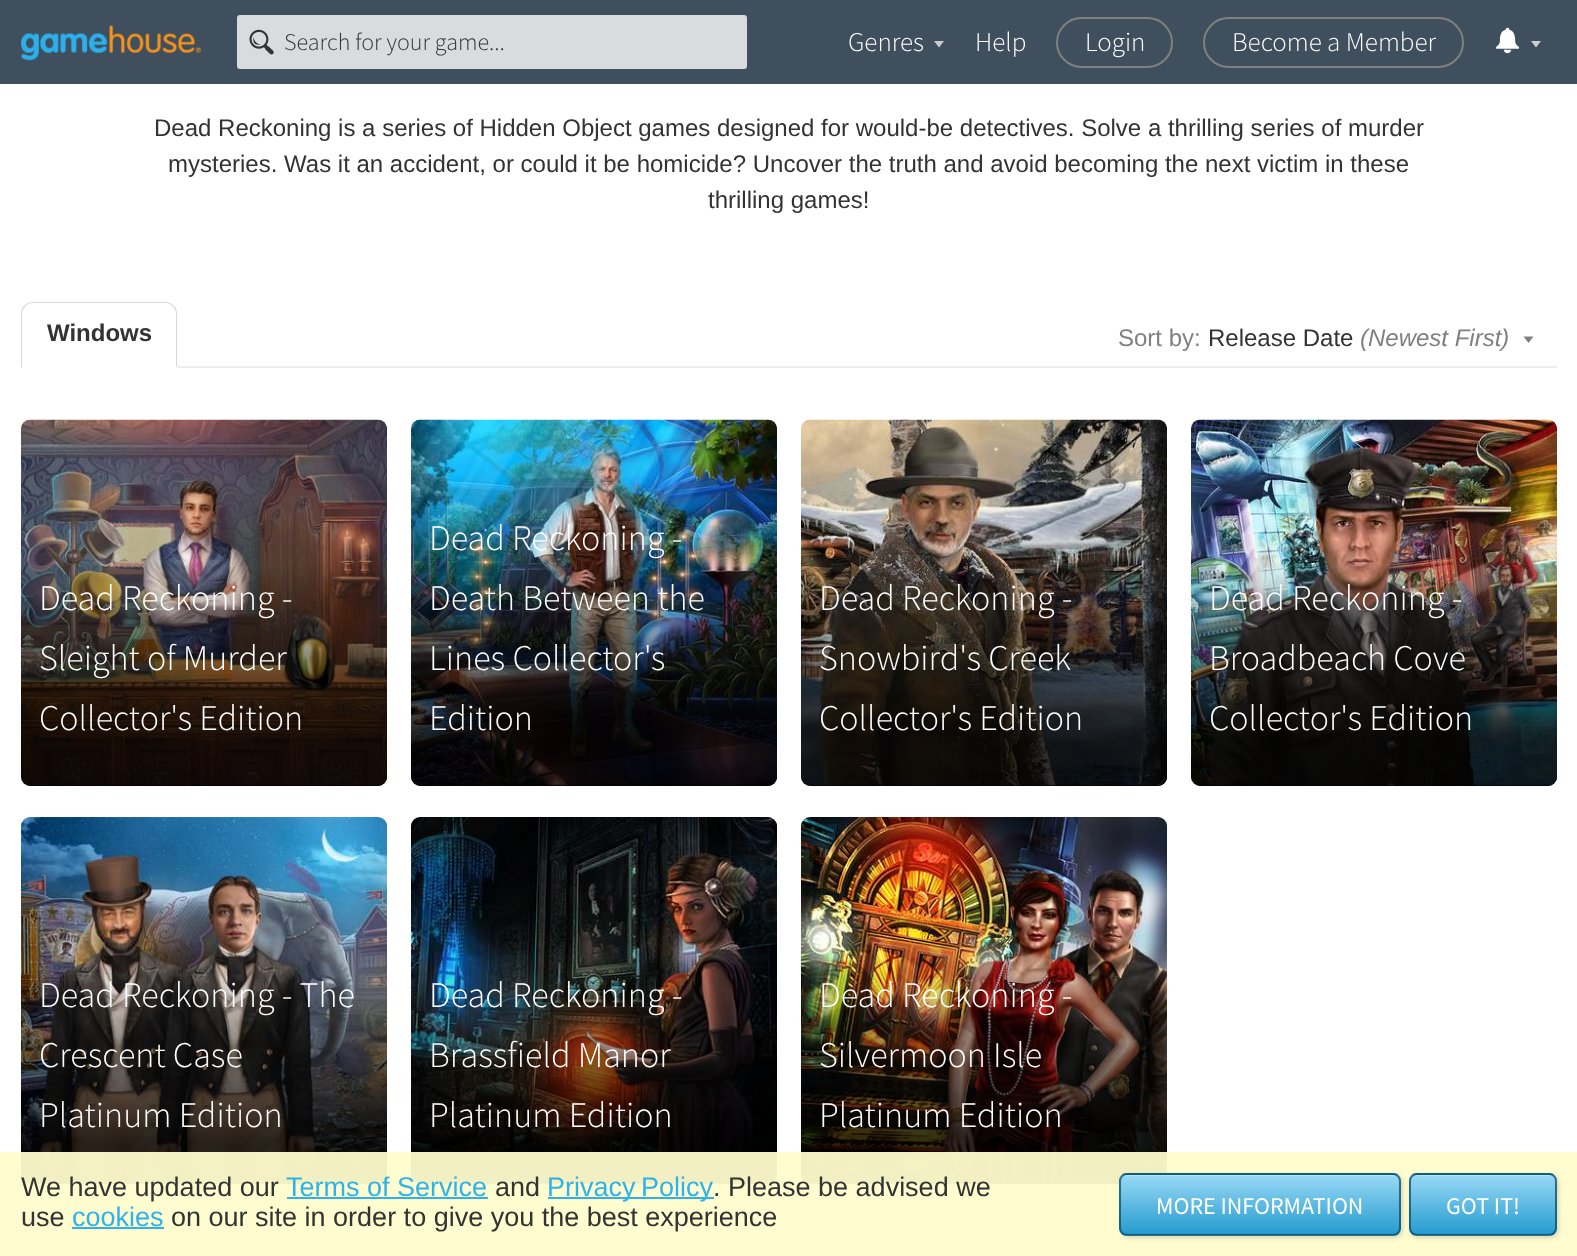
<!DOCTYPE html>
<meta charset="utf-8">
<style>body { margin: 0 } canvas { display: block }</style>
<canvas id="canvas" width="1577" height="1256"></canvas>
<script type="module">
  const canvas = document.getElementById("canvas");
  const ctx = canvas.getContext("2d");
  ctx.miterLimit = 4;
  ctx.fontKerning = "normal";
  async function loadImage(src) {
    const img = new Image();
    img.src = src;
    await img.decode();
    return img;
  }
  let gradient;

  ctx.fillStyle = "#ffffff";
  ctx.fillRect(0, 0, 1577, 1256);
  ctx.fillStyle = "rgba(0, 20, 40, 0.75)";
  ctx.fillRect(0, 0, 1577, 84);
  ctx.drawImage(await loadImage("img1.png"), 21, 25, 180, 36);
  ctx.fillStyle = "rgba(255, 255, 255, 0.8)";
  ctx.beginPath();
  ctx.roundRect(237, 15, 510, 54, 3);
  ctx.fill();
  ctx.drawImage(await loadImage("img2.png"), 249, 29, 25, 26);
  ctx.font = "300 24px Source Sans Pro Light";
  ctx.fillStyle = "#333333";
  ctx.fillText("Search for your game...", 284, 50);
  ctx.font = "300 27px Source Sans Pro Light";
  ctx.fillStyle = "#ffffff";
  ctx.fillText("Genres", 848, 51);
  ctx.fillStyle = "#cccccc";
  ctx.beginPath();
  ctx.moveTo(944, 41);
  ctx.lineTo(934, 41);
  ctx.lineTo(939, 47.5);
  ctx.closePath();
  ctx.fill();
  ctx.fillStyle = "#ffffff";
  ctx.fillText("Help", 975, 51);
  ctx.beginPath();
  ctx.roundRect(1057, 18, 115, 49, 24.5);
  ctx.strokeStyle = "#808080";
  ctx.lineWidth = 2;
  ctx.stroke();
  ctx.fillText("Login", 1085, 51);
  ctx.beginPath();
  ctx.roundRect(1204, 18, 259, 49, 24.5);
  ctx.stroke();
  ctx.fillText("Become a Member", 1232, 51);
  ctx.drawImage(await loadImage("img3.png"), 1496, 27, 23, 27);
  ctx.fillStyle = "#cccccc";
  ctx.beginPath();
  ctx.moveTo(1541, 41);
  ctx.lineTo(1531, 41);
  ctx.lineTo(1536, 47.5);
  ctx.closePath();
  ctx.fill();
  ctx.font = "24px Liberation Sans";
  ctx.fillStyle = "#333333";
  ctx.fillText("Dead Reckoning is a series of Hidden Object games designed for would-be detectives. Solve a thrilling series of murder", 154, 136);
  ctx.fillText("mysteries. Was it an accident, or could it be homicide? Uncover the truth and avoid becoming the next victim in these", 168, 172);
  ctx.fillText("thrilling games!", 708, 208);
  ctx.fillStyle = "#d9d9d9";
  ctx.beginPath();
  ctx.moveTo(33, 302);
  ctx.bezierCurveTo(30, 302, 27, 303, 25, 305);
  ctx.lineTo(26, 306);
  ctx.bezierCurveTo(27, 304, 30, 303, 33, 303);
  ctx.lineTo(165, 303);
  ctx.bezierCurveTo(168, 303, 171, 304, 172, 306);
  ctx.lineTo(173, 305);
  ctx.bezierCurveTo(171, 303, 168, 302, 165, 302);
  ctx.closePath();
  ctx.fill();
  ctx.beginPath();
  ctx.moveTo(173, 305);
  ctx.bezierCurveTo(176, 307, 177, 310, 177, 314);
  ctx.lineTo(177, 368);
  ctx.lineTo(176, 366);
  ctx.lineTo(176, 314);
  ctx.bezierCurveTo(176, 311, 175, 308, 172, 306);
  ctx.closePath();
  ctx.fill();
  ctx.fillStyle = "#ffffff";
  ctx.beginPath();
  ctx.moveTo(177, 368);
  ctx.lineTo(21, 368);
  ctx.lineTo(22, 366);
  ctx.lineTo(176, 366);
  ctx.closePath();
  ctx.fill();
  ctx.fillStyle = "#d9d9d9";
  ctx.beginPath();
  ctx.moveTo(21, 368);
  ctx.lineTo(22, 366);
  ctx.lineTo(22, 314);
  ctx.bezierCurveTo(22, 311, 23, 308, 26, 306);
  ctx.lineTo(25, 305);
  ctx.bezierCurveTo(22, 307, 21, 310, 21, 314);
  ctx.closePath();
  ctx.fill();
  ctx.font = "bold 24px Liberation Sans";
  ctx.fillStyle = "#333333";
  ctx.fillText("Windows", 47, 341);
  ctx.font = "24px Liberation Sans";
  ctx.fillStyle = "#808080";
  ctx.fillText("Sort by:", 1118, 346);
  ctx.fillStyle = "#333333";
  ctx.fillText("Release Date", 1208, 346);
  ctx.font = "italic 24px Liberation Sans";
  ctx.fillStyle = "#808080";
  ctx.fillText("(Newest First)", 1360, 346);
  ctx.beginPath();
  ctx.moveTo(1533.5, 336.5);
  ctx.lineTo(1523.5, 336.5);
  ctx.lineTo(1528.5, 343);
  ctx.closePath();
  ctx.fill();
  ctx.fillStyle = "#eeeeee";
  ctx.fillRect(177, 366, 1380, 2);
  ctx.fillStyle = "#000000";
  ctx.beginPath();
  ctx.roundRect(21, 420, 367, 367, 10);
  ctx.fill();
  ctx.strokeStyle = "#ffffff";
  ctx.stroke();
  ctx.drawImage(await loadImage("img4.png"), 21, 419, 366, 367);
  gradient = ctx.createLinearGradient(204, 561, 204, 786);
  gradient.addColorStop(0, "rgba(0, 0, 0, 0)");
  gradient.addColorStop(0.8, "rgba(0, 0, 0, 0.8)");
  ctx.fillStyle = gradient;
  ctx.beginPath();
  ctx.roundRect(21, 561, 366, 225, [0, 0, 9, 9]);
  ctx.fill();
  ctx.font = "300 36px Source Sans Pro Light";
  ctx.fillStyle = "#ffffff";
  ctx.fillText("Dead Reckoning -", 39, 610);
  ctx.fillText("Sleight of Murder", 39, 670);
  ctx.fillText("Collector's Edition", 39, 730);
  ctx.fillStyle = "#000000";
  ctx.beginPath();
  ctx.roundRect(411, 420, 367, 367, 10);
  ctx.fill();
  ctx.stroke();
  ctx.drawImage(await loadImage("img5.png"), 411, 419, 366, 367);
  ctx.fillStyle = "#ffffff";
  ctx.fillText("Dead Reckoning -", 429, 550);
  gradient = ctx.createLinearGradient(594, 561, 594, 786);
  gradient.addColorStop(0, "rgba(0, 0, 0, 0)");
  gradient.addColorStop(0.8, "rgba(0, 0, 0, 0.8)");
  ctx.fillStyle = gradient;
  ctx.beginPath();
  ctx.roundRect(411, 561, 366, 225, [0, 0, 9, 9]);
  ctx.fill();
  ctx.fillStyle = "#ffffff";
  ctx.fillText("Death Between the", 429, 610);
  ctx.fillText("Lines Collector's", 429, 670);
  ctx.fillText("Edition", 429, 730);
  ctx.fillStyle = "#000000";
  ctx.beginPath();
  ctx.roundRect(801, 420, 367, 367, 10);
  ctx.fill();
  ctx.stroke();
  ctx.drawImage(await loadImage("img6.png"), 801, 419, 366, 367);
  gradient = ctx.createLinearGradient(984, 561, 984, 786);
  gradient.addColorStop(0, "rgba(0, 0, 0, 0)");
  gradient.addColorStop(0.8, "rgba(0, 0, 0, 0.8)");
  ctx.fillStyle = gradient;
  ctx.beginPath();
  ctx.roundRect(801, 561, 366, 225, [0, 0, 9, 9]);
  ctx.fill();
  ctx.fillStyle = "#ffffff";
  ctx.fillText("Dead Reckoning -", 819, 610);
  ctx.fillText("Snowbird's Creek", 819, 670);
  ctx.fillText("Collector's Edition", 819, 730);
  ctx.fillStyle = "#000000";
  ctx.beginPath();
  ctx.roundRect(1191, 420, 367, 367, 10);
  ctx.fill();
  ctx.stroke();
  ctx.drawImage(await loadImage("img7.png"), 1191, 419, 366, 367);
  gradient = ctx.createLinearGradient(1374, 561, 1374, 786);
  gradient.addColorStop(0, "rgba(0, 0, 0, 0)");
  gradient.addColorStop(0.8, "rgba(0, 0, 0, 0.8)");
  ctx.fillStyle = gradient;
  ctx.beginPath();
  ctx.roundRect(1191, 561, 366, 225, [0, 0, 9, 9]);
  ctx.fill();
  ctx.fillStyle = "#ffffff";
  ctx.fillText("Dead Reckoning -", 1209, 610);
  ctx.fillText("Broadbeach Cove", 1209, 670);
  ctx.fillText("Collector's Edition", 1209, 730);
  ctx.fillStyle = "#000000";
  ctx.beginPath();
  ctx.roundRect(21, 817, 367, 367, 10);
  ctx.fill();
  ctx.stroke();
  ctx.drawImage(await loadImage("img8.png"), 21, 817, 366, 366);
  gradient = ctx.createLinearGradient(204, 959, 204, 1184);
  gradient.addColorStop(0, "rgba(0, 0, 0, 0)");
  gradient.addColorStop(0.8, "rgba(0, 0, 0, 0.8)");
  ctx.fillStyle = gradient;
  ctx.beginPath();
  ctx.roundRect(21, 959, 366, 225, [0, 0, 9, 9]);
  ctx.fill();
  ctx.fillStyle = "#ffffff";
  ctx.fillText("Dead Reckoning - The", 39, 1007);
  ctx.fillText("Crescent Case", 39, 1067);
  ctx.fillText("Platinum Edition", 39, 1127);
  ctx.fillStyle = "#000000";
  ctx.beginPath();
  ctx.roundRect(411, 817, 367, 367, 10);
  ctx.fill();
  ctx.stroke();
  ctx.drawImage(await loadImage("img9.png"), 411, 817, 366, 366);
  gradient = ctx.createLinearGradient(594, 959, 594, 1184);
  gradient.addColorStop(0, "rgba(0, 0, 0, 0)");
  gradient.addColorStop(0.8, "rgba(0, 0, 0, 0.8)");
  ctx.fillStyle = gradient;
  ctx.beginPath();
  ctx.roundRect(411, 959, 366, 225, [0, 0, 9, 9]);
  ctx.fill();
  ctx.fillStyle = "#ffffff";
  ctx.fillText("Dead Reckoning -", 429, 1007);
  ctx.fillText("Brassfield Manor", 429, 1067);
  ctx.fillText("Platinum Edition", 429, 1127);
  ctx.drawImage(await loadImage("img10.png"), 801, 817, 366, 366);
  gradient = ctx.createLinearGradient(984, 959, 984, 1184);
  gradient.addColorStop(0, "rgba(0, 0, 0, 0)");
  gradient.addColorStop(0.8, "rgba(0, 0, 0, 0.8)");
  ctx.fillStyle = gradient;
  ctx.beginPath();
  ctx.roundRect(801, 959, 366, 225, [0, 0, 9, 9]);
  ctx.fill();
  ctx.fillStyle = "#ffffff";
  ctx.fillText("Dead Reckoning -", 819, 1007);
  ctx.fillText("Silvermoon Isle", 819, 1067);
  ctx.fillText("Platinum Edition", 819, 1127);
  ctx.fillStyle = "#f7f7f7";
  ctx.fillRect(0, 1235, 1577, 21);
  ctx.fillStyle = "rgba(255, 253, 205, 0.95)";
  ctx.fillRect(0, 1152, 1577, 104);
  ctx.font = "27px Liberation Sans";
  ctx.fillStyle = "#333333";
  ctx.fillText("We have updated our", 21, 1196);
  ctx.fillStyle = "#2eb2ea";
  ctx.fillText("Terms of Service", 286, 1196);
  ctx.fillRect(287, 1197, 201, 2);
  ctx.fillStyle = "#333333";
  ctx.fillText("and", 495, 1196);
  ctx.fillStyle = "#2eb2ea";
  ctx.fillRect(548, 1197, 166, 2);
  ctx.wordSpacing = "-2px";
  ctx.fillText("Privacy Policy", 547, 1196);
  ctx.wordSpacing = "0px";
  ctx.fillStyle = "#333333";
  ctx.fillText(". Please be advised we", 713, 1196);
  ctx.fillText("use", 21, 1226);
  ctx.fillStyle = "#2eb2ea";
  ctx.fillText("cookies", 72, 1226);
  ctx.fillRect(72, 1227, 92, 2);
  ctx.fillStyle = "#333333";
  ctx.fillText("on our site in order to give you the best experience", 171, 1226);
  ctx.fillStyle = "rgba(0, 0, 0, 0.15)";
  ctx.filter = "blur(2px)";
  ctx.beginPath();
  ctx.roundRect(1121, 1175, 282, 63, 8);
  ctx.fill();
  ctx.filter = "none";
  ctx.save();
  ctx.beginPath();
  ctx.roundRect(1119, 1173, 282, 63, 8);
  ctx.clip();
  gradient = ctx.createLinearGradient(1260, 1115, 1260, 1175);
  gradient.addColorStop(0, "#c4e9f8");
  gradient.addColorStop(0.03, "#94d7f4");
  gradient.addColorStop(0.97, "#289cd0");
  gradient.addColorStop(1, "#1887b8");
  ctx.fillStyle = gradient;
  ctx.fillRect(1119, 1173, 282, 2);
  gradient = ctx.createLinearGradient(1260, 1175, 1260, 1235);
  gradient.addColorStop(0, "#c4e9f8");
  gradient.addColorStop(0.03, "#94d7f4");
  gradient.addColorStop(0.97, "#289cd0");
  gradient.addColorStop(1, "#1887b8");
  ctx.fillStyle = gradient;
  ctx.fillRect(1119, 1175, 282, 60);
  gradient = ctx.createLinearGradient(1260, 1235, 1260, 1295);
  gradient.addColorStop(0, "#c4e9f8");
  gradient.addColorStop(0.03, "#94d7f4");
  gradient.addColorStop(0.97, "#289cd0");
  gradient.addColorStop(1, "#1887b8");
  ctx.fillStyle = gradient;
  ctx.fillRect(1119, 1235, 282, 1);
  ctx.restore();
  ctx.beginPath();
  ctx.roundRect(1120, 1174, 280, 61, 7);
  ctx.strokeStyle = "rgba(8, 76, 105, 0.75)";
  ctx.stroke();
  ctx.font = "24px Source Sans Pro";
  ctx.fillStyle = "#ffffff";
  ctx.fillText("MORE INFORMATION", 1156, 1214);
  ctx.fillStyle = "rgba(0, 0, 0, 0.15)";
  ctx.filter = "blur(2px)";
  ctx.beginPath();
  ctx.roundRect(1410, 1175, 149, 63, 8);
  ctx.fill();
  ctx.filter = "none";
  ctx.save();
  ctx.beginPath();
  ctx.roundRect(1409, 1173, 148, 63, 8);
  ctx.clip();
  gradient = ctx.createLinearGradient(1483, 1115, 1483, 1175);
  gradient.addColorStop(0, "#c4e9f8");
  gradient.addColorStop(0.03, "#94d7f4");
  gradient.addColorStop(0.97, "#289cd0");
  gradient.addColorStop(1, "#1887b8");
  ctx.fillStyle = gradient;
  ctx.fillRect(1409, 1173, 148, 2);
  gradient = ctx.createLinearGradient(1483, 1175, 1483, 1235);
  gradient.addColorStop(0, "#c4e9f8");
  gradient.addColorStop(0.03, "#94d7f4");
  gradient.addColorStop(0.97, "#289cd0");
  gradient.addColorStop(1, "#1887b8");
  ctx.fillStyle = gradient;
  ctx.fillRect(1409, 1175, 148, 60);
  gradient = ctx.createLinearGradient(1483, 1235, 1483, 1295);
  gradient.addColorStop(0, "#c4e9f8");
  gradient.addColorStop(0.03, "#94d7f4");
  gradient.addColorStop(0.97, "#289cd0");
  gradient.addColorStop(1, "#1887b8");
  ctx.fillStyle = gradient;
  ctx.fillRect(1409, 1235, 148, 1);
  ctx.restore();
  ctx.beginPath();
  ctx.roundRect(1410, 1174, 146, 61, 7);
  ctx.stroke();
  ctx.fillStyle = "#ffffff";
  ctx.fillText("GOT IT!", 1446, 1214);
</script>
